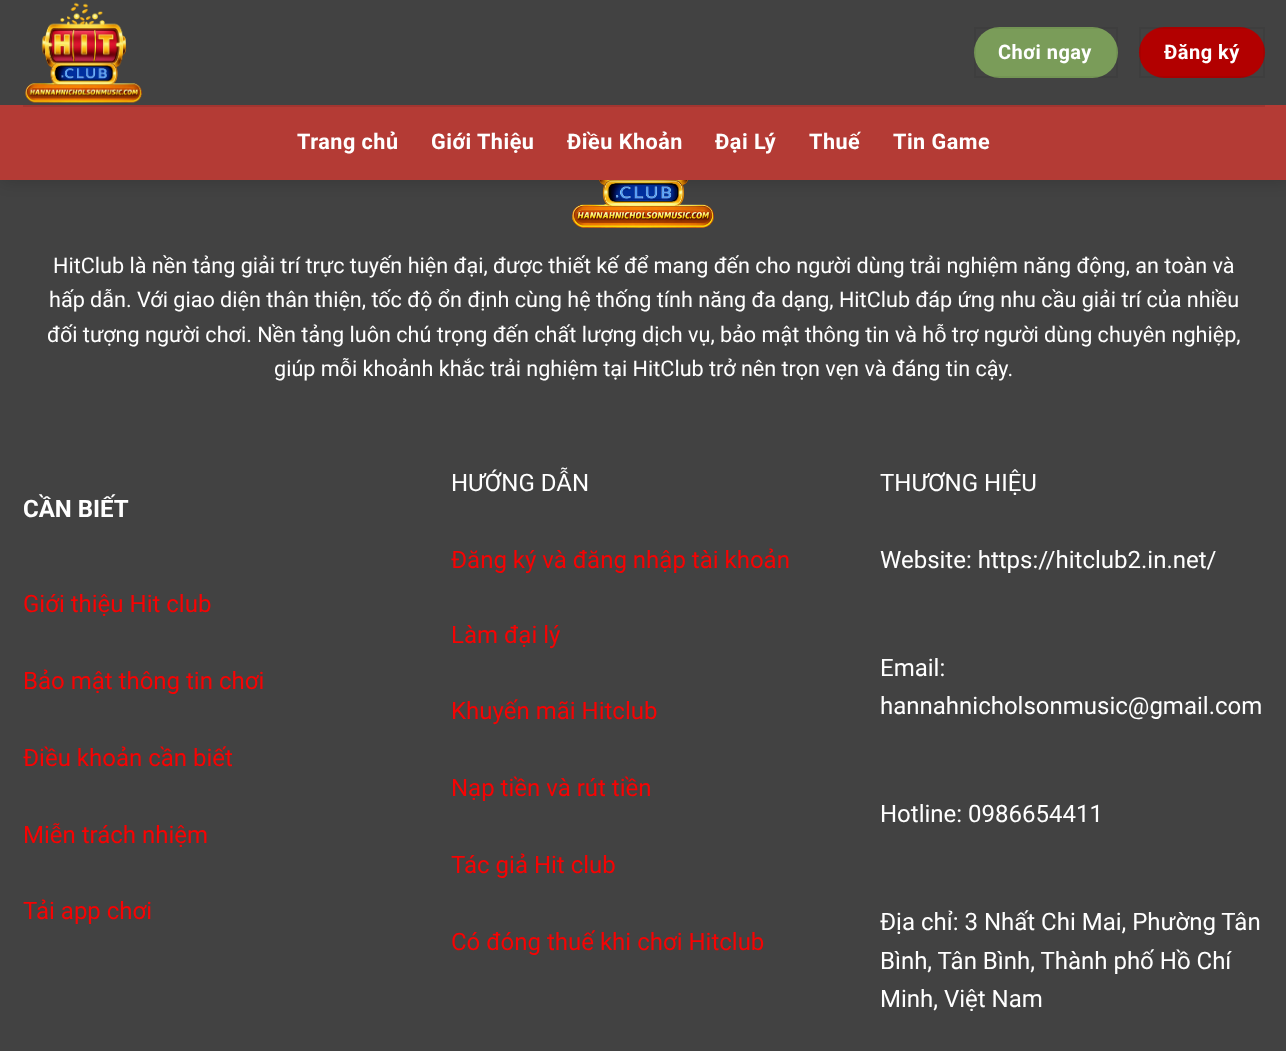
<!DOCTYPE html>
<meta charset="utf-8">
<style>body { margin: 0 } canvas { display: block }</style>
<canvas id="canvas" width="1286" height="1051"></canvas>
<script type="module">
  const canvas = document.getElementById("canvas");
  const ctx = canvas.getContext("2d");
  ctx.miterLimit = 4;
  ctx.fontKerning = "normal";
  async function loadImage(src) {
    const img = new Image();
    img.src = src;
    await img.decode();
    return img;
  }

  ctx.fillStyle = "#424242";
  ctx.fillRect(0, 0, 1286, 1051);
  ctx.drawImage(await loadImage("img2.png"), 572, 180, 142, 48);
  ctx.fillStyle = "rgba(0, 0, 0, 0.15)";
  ctx.filter = "blur(7.5px)";
  ctx.beginPath();
  ctx.rect(2, 2, 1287, 180);
  ctx.fill();
  ctx.filter = "none";
  ctx.fillStyle = "#424242";
  ctx.fillRect(0, 0, 1286, 105);
  ctx.drawImage(await loadImage("img1.png"), 25, 2, 118, 101);
  ctx.fillStyle = "#7a9c59";
  ctx.beginPath();
  ctx.roundRect(974, 27, 144, 51, 25.5);
  ctx.fill();
  ctx.strokeStyle = "rgba(0, 0, 0, 0.05)";
  ctx.lineWidth = 2;
  ctx.strokeRect(975, 28, 142, 49);
  ctx.letterSpacing = "0.5px";
  ctx.font = "bold 20px Roboto";
  ctx.fillStyle = "#ffffff";
  ctx.fillText("Chơi ngay", 998, 59);
  ctx.fillStyle = "#b20000";
  ctx.beginPath();
  ctx.roundRect(1139, 27, 126, 51, 25.5);
  ctx.fill();
  ctx.strokeRect(1140, 28, 124, 49);
  ctx.fillStyle = "#ffffff";
  ctx.fillText("Đăng ký", 1164, 59);
  ctx.fillStyle = "#b43b35";
  ctx.fillRect(0, 105, 1286, 75);
  ctx.fillStyle = "#a23530";
  ctx.fillRect(23, 105, 1242, 2);
  ctx.font = "bold 21.6px Roboto";
  ctx.fillStyle = "#ffffff";
  ctx.fillText("Trang chủ", 297, 149);
  ctx.fillText("Giới Thiệu", 431, 149);
  ctx.fillText("Điều Khoản", 567, 149);
  ctx.fillText("Đại Lý", 715, 149);
  ctx.fillText("Thuế", 809, 149);
  ctx.fillText("Tin Game", 893, 149);
  ctx.letterSpacing = "0px";
  ctx.font = "21.6px Roboto";
  ctx.fillText("HitClub là nền tảng giải trí trực tuyến hiện đại, được thiết kế để mang đến cho người dùng trải nghiệm năng động, an toàn và", 53, 273);
  ctx.fillText("hấp dẫn. Với giao diện thân thiện, tốc độ ổn định cùng hệ thống tính năng đa dạng, HitClub đáp ứng nhu cầu giải trí của nhiều", 49, 307);
  ctx.fillText("đối tượng người chơi. Nền tảng luôn chú trọng đến chất lượng dịch vụ, bảo mật thông tin và hỗ trợ người dùng chuyên nghiệp,", 47, 342);
  ctx.fillText("giúp mỗi khoảnh khắc trải nghiệm tại HitClub trở nên trọn vẹn và đáng tin cậy.", 274, 376);
  ctx.font = "bold 24px Roboto";
  ctx.fillText("CẦN BIẾT", 23, 517);
  ctx.font = "24px Roboto";
  ctx.fillStyle = "#f60303";
  ctx.fillText("Giới thiệu Hit club", 23, 612);
  ctx.fillText("Bảo mật thông tin chơi", 23, 689);
  ctx.fillText("Điều khoản cần biết", 23, 766);
  ctx.fillText("Miễn trách nhiệm", 23, 843);
  ctx.fillText("Tải app chơi", 23, 919);
  ctx.fillStyle = "#ffffff";
  ctx.fillText("HƯỚNG DẪN", 451, 491);
  ctx.fillStyle = "#f60303";
  ctx.fillText("Đăng ký và đăng nhập tài khoản", 451, 568);
  ctx.fillText("Làm đại lý", 451, 643);
  ctx.fillText("Khuyến mãi Hitclub", 451, 719);
  ctx.fillText("Nạp tiền và rút tiền", 451, 796);
  ctx.fillText("Tác giả Hit club", 451, 873);
  ctx.fillText("Có đóng thuế khi chơi Hitclub", 451, 950);
  ctx.fillStyle = "#ffffff";
  ctx.fillText("THƯƠNG HIỆU", 880, 491);
  ctx.fillText("Website: https://hitclub2.in.net/", 880, 568);
  ctx.fillText("Email:", 880, 676);
  ctx.fillText("hannahnicholsonmusic@gmail.com", 880, 714);
  ctx.fillText("Hotline: 0986654411", 880, 822);
  ctx.fillText("Địa chỉ: 3 Nhất Chi Mai, Phường Tân", 880, 930);
  ctx.fillText("Bình, Tân Bình, Thành phố Hồ Chí", 880, 969);
  ctx.fillText("Minh, Việt Nam", 880, 1007);
</script>
